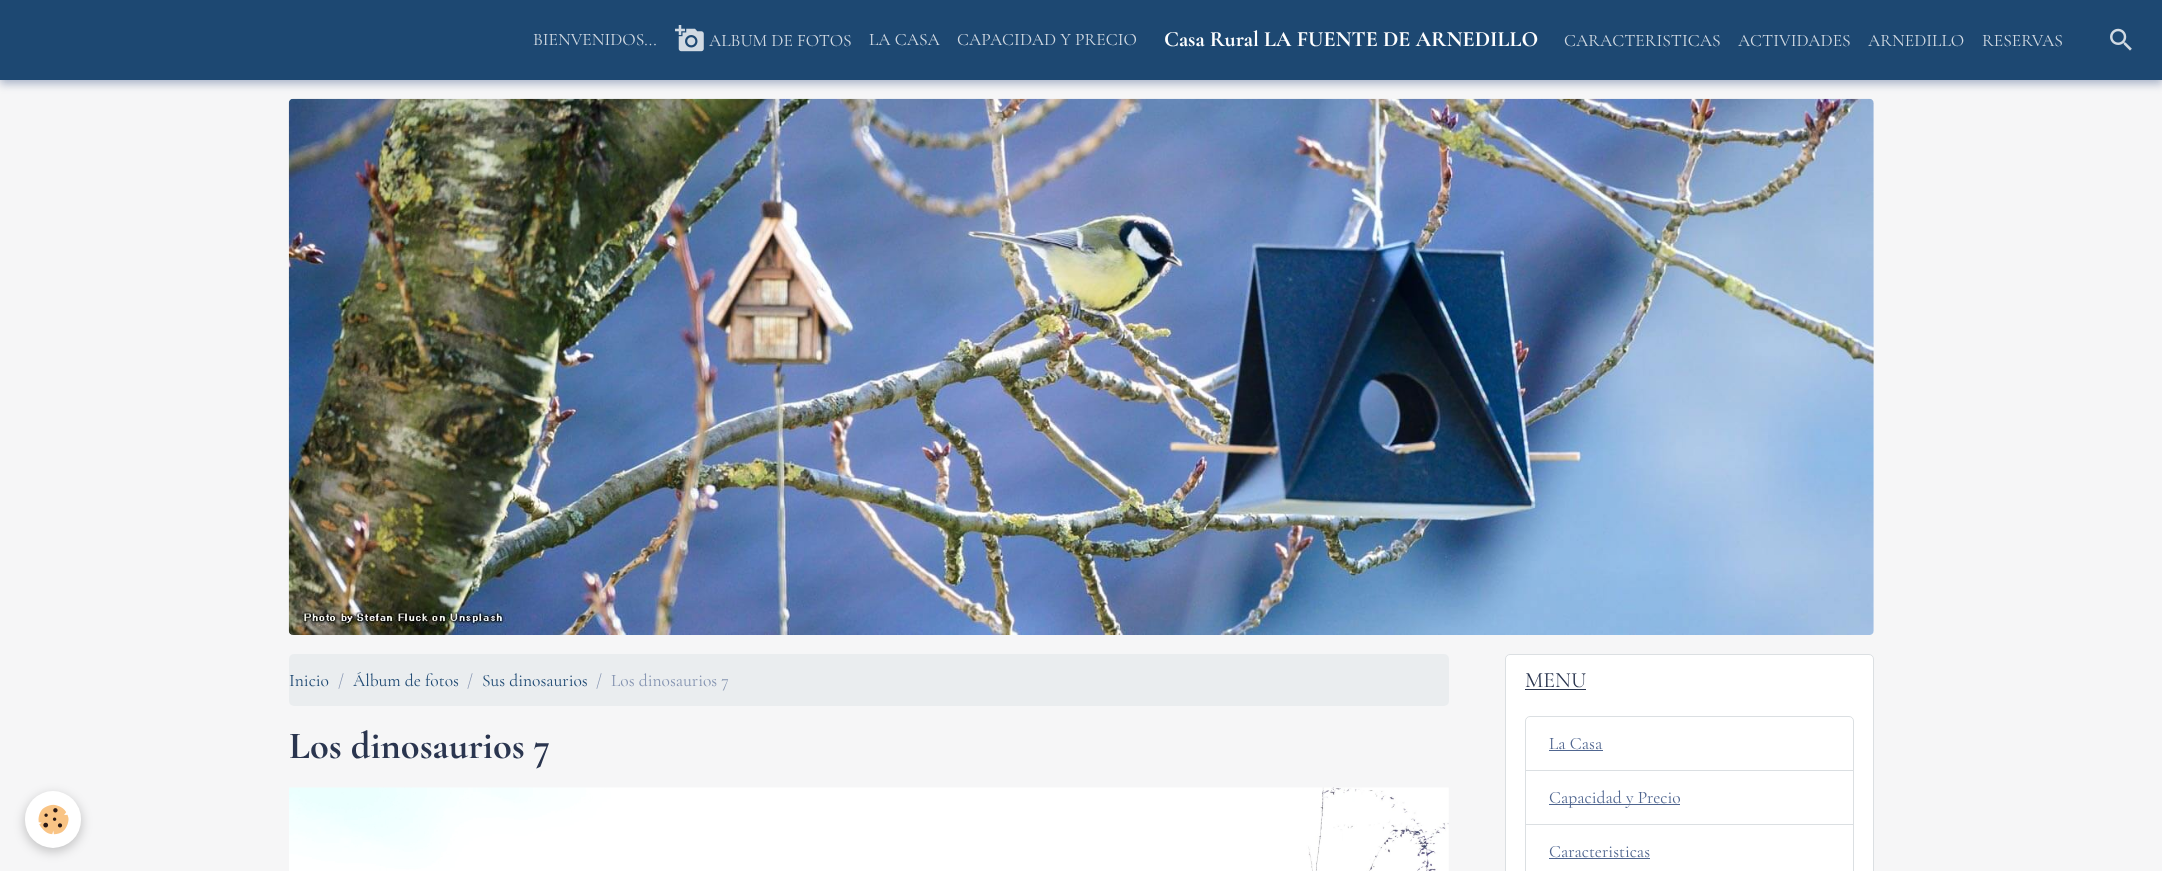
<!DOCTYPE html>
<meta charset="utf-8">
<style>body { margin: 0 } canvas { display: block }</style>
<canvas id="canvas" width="2162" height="871"></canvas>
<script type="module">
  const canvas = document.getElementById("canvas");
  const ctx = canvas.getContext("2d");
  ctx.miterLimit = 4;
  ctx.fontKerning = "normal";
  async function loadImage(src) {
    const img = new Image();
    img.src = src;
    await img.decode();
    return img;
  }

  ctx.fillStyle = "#f6f6f7";
  ctx.fillRect(0, 0, 2162, 871);
  ctx.drawImage(await loadImage("img3.png"), 288, 98, 1586, 537);
  ctx.fillStyle = "rgba(98, 117, 155, 0.5)";
  ctx.filter = "blur(4.5px)";
  ctx.beginPath();
  ctx.rect(0, 4, 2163, 80);
  ctx.fill();
  ctx.filter = "none";
  ctx.fillStyle = "#1d4872";
  ctx.fillRect(0, 0, 2162, 80);
  ctx.font = "17.5px Cormorant Garamond";
  ctx.fillStyle = "#d2dae3";
  ctx.fillText("BIENVENIDOS...", 533, 45);
  ctx.drawImage(await loadImage("img1.png"), 675, 25, 29, 27);
  ctx.fillText("ALBUM DE FOTOS", 709, 46);
  ctx.fillText("LA CASA", 869, 45);
  ctx.fillText("CAPACIDAD Y PRECIO", 957, 45);
  ctx.font = "bold 21.9px Cormorant Garamond";
  ctx.fillStyle = "#ffffff";
  ctx.fillText("Casa Rural LA FUENTE DE ARNEDILLO", 1164, 46);
  ctx.font = "17.5px Cormorant Garamond";
  ctx.fillStyle = "#d2dae3";
  ctx.fillText("CARACTERISTICAS", 1564, 46);
  ctx.fillText("ACTIVIDADES", 1738, 46);
  ctx.fillText("ARNEDILLO", 1868, 46);
  ctx.fillText("RESERVAS", 1982, 46);
  ctx.drawImage(await loadImage("img2.png"), 2110, 28, 22, 23);
  ctx.fillStyle = "rgba(0, 0, 0, 0.24)";
  ctx.filter = "blur(6px)";
  ctx.beginPath();
  ctx.roundRect(25, 795, 56, 56, 28);
  ctx.fill();
  ctx.filter = "none";
  ctx.fillStyle = "#ffffff";
  ctx.beginPath();
  ctx.roundRect(25, 791, 56, 57, 28);
  ctx.fill();
  ctx.drawImage(await loadImage("img4.png"), 38, 804, 31, 31);
  ctx.fillStyle = "#eaedef";
  ctx.beginPath();
  ctx.roundRect(289, 654, 1160, 52, 5);
  ctx.fill();
  ctx.fillStyle = "#1d4872";
  ctx.fillText("Inicio", 289, 686);
  ctx.fillStyle = "#8594b1";
  ctx.fillText("/", 338, 686);
  ctx.fillStyle = "#1d4872";
  ctx.fillText("Álbum de fotos", 353, 686);
  ctx.fillStyle = "#8594b1";
  ctx.fillText("/", 467, 686);
  ctx.fillStyle = "#1d4872";
  ctx.fillText("Sus dinosaurios", 482, 686);
  ctx.fillStyle = "#8594b1";
  ctx.fillText("/", 596, 686);
  ctx.fillText("Los dinosaurios 7", 611, 686);
  ctx.font = "bold 38.5px Cormorant Garamond";
  ctx.fillStyle = "#2a354f";
  ctx.fillText("Los dinosaurios 7", 289, 758);
  ctx.drawImage(await loadImage("img5.png"), 289, 787, 1160, 84);
  ctx.fillStyle = "#ffffff";
  ctx.beginPath();
  ctx.roundRect(1505.5, 654.5, 368, 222, 4.5);
  ctx.fill();
  ctx.strokeStyle = "#dbdfe2";
  ctx.stroke();
  ctx.font = "21.9px Cormorant Garamond";
  ctx.fillStyle = "#2a354f";
  ctx.fillText("MENU", 1525, 687);
  ctx.fillRect(1525, 689, 61, 1);
  ctx.beginPath();
  ctx.roundRect(1525.5, 716.5, 328, 54, [4.5, 4.5, 0, 0]);
  ctx.stroke();
  ctx.font = "17.5px Cormorant Garamond";
  ctx.fillStyle = "#506690";
  ctx.fillText("La Casa", 1549, 749);
  ctx.fillRect(1549, 750, 54, 1);
  ctx.strokeRect(1525.5, 770.5, 328, 54);
  ctx.fillRect(1549, 804, 131, 1);
  ctx.fillText("Capacidad y Precio", 1549, 803);
  ctx.strokeRect(1525.5, 824.5, 328, 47);
  ctx.fillText("Caracteristicas", 1549, 857);
  ctx.fillRect(1549, 858, 101, 1);
</script>
